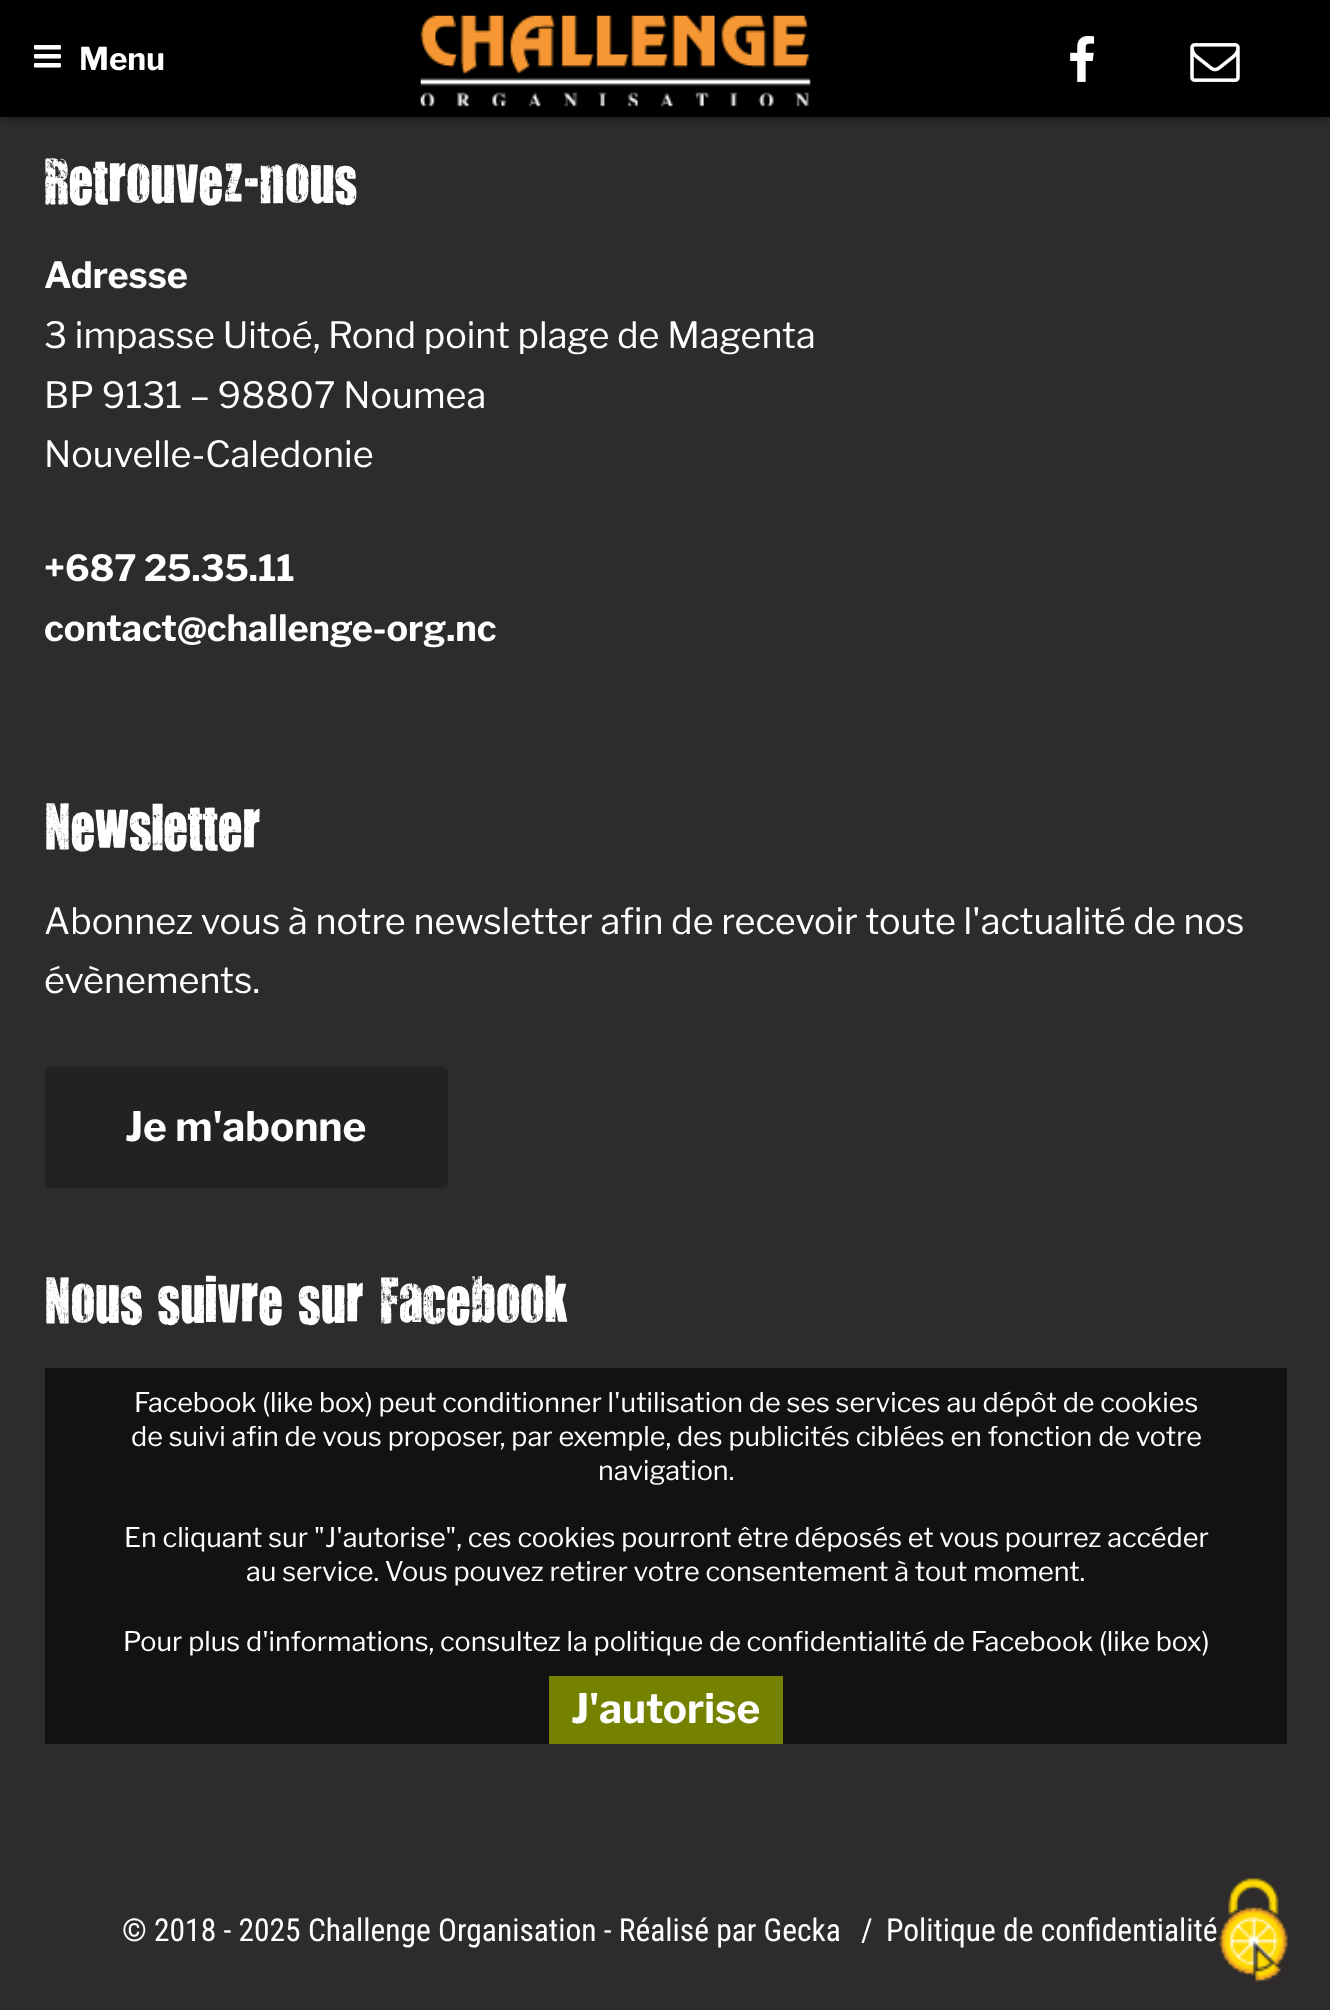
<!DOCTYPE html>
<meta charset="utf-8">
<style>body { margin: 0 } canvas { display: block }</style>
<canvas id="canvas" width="1330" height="2010"></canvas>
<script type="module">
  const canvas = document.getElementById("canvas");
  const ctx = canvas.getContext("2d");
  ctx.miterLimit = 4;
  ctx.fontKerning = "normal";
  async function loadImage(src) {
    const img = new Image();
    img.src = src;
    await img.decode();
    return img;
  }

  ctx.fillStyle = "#2d2b2b";
  ctx.fillRect(0, 0, 1330, 2010);
  ctx.fillStyle = "rgba(0, 0, 0, 0.4)";
  ctx.filter = "blur(4.5px)";
  ctx.beginPath();
  ctx.rect(2, 7, 1328, 112);
  ctx.fill();
  ctx.filter = "none";
  ctx.fillStyle = "#000000";
  ctx.fillRect(0, 0, 1330, 117);
  ctx.drawImage(await loadImage("img1.png"), 33, 45, 28, 23);
  ctx.font = "bold 31.5px Libre Franklin";
  ctx.fillStyle = "#ffffff";
  ctx.fillText("Menu", 79, 70);
  ctx.drawImage(await loadImage("img2.png"), 420, 15, 391, 92);
  ctx.drawImage(await loadImage("img3.png"), 1070, 36, 25, 46);
  ctx.drawImage(await loadImage("img4.png"), 1190, 43, 50, 39);
  ctx.font = "54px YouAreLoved";
  ctx.fillText("Retrouvez-nous", 44, 201);
  ctx.font = "bold 36px Libre Franklin";
  ctx.fillText("Adresse", 44, 288);
  ctx.font = "36px Libre Franklin";
  ctx.fillText("3 impasse Uitoé, Rond point plage de Magenta", 44, 348);
  ctx.fillText("BP 9131 – 98807 Noumea", 44, 408);
  ctx.fillText("Nouvelle-Caledonie", 44, 467);
  ctx.font = "bold 36px Libre Franklin";
  ctx.fillText("+687 25.35.11", 44, 581);
  ctx.fillText("contact@challenge-org.nc", 44, 641);
  ctx.font = "54px YouAreLoved";
  ctx.fillText("Newsletter", 44, 847);
  ctx.font = "36px Libre Franklin";
  ctx.fillText("Abonnez vous à notre newsletter afin de recevoir toute l'actualité de nos", 44, 934);
  ctx.fillText("évènements.", 44, 993);
  ctx.fillStyle = "#222222";
  ctx.beginPath();
  ctx.roundRect(45, 1067, 403, 121, 5);
  ctx.fill();
  ctx.font = "bold 40.5px Libre Franklin";
  ctx.fillStyle = "#ffffff";
  ctx.fillText("Je m'abonne", 125, 1141);
  ctx.font = "54px YouAreLoved";
  ctx.fillText("Nous suivre sur Facebook", 44, 1321);
  ctx.fillStyle = "#131212";
  ctx.fillRect(45, 1368, 1242, 376);
  ctx.font = "27px Libre Franklin";
  ctx.fillStyle = "#ffffff";
  ctx.fillText("Facebook (like box) peut conditionner l'utilisation de ses services au dépôt de cookies", 134, 1412);
  ctx.fillText("de suivi afin de vous proposer, par exemple, des publicités ciblées en fonction de votre", 131, 1446);
  ctx.fillText("navigation.", 598, 1480);
  ctx.fillText("En cliquant sur \"J'autorise\", ces cookies pourront être déposés et vous pourrez accéder", 124, 1547);
  ctx.fillText("au service. Vous pouvez retirer votre consentement à tout moment.", 246, 1581);
  ctx.fillText("Pour plus d'informations, consultez la politique de confidentialité de Facebook (like box)", 123, 1651);
  ctx.fillStyle = "#748200";
  ctx.fillRect(549, 1676, 234, 68);
  ctx.font = "bold 40.5px Libre Franklin";
  ctx.fillStyle = "#ffffff";
  ctx.fillText("J'autorise", 571, 1723);
  ctx.font = "31.5px Roboto Condensed";
  ctx.fillText("© 2018 - 2025 Challenge Organisation - Réalisé par Gecka", 122, 1941);
  ctx.fillText("/", 861, 1941);
  ctx.fillText("Politique de confidentialité", 886, 1941);
  ctx.drawImage(await loadImage("img5.png"), 1219, 1878, 69, 105);
</script>
